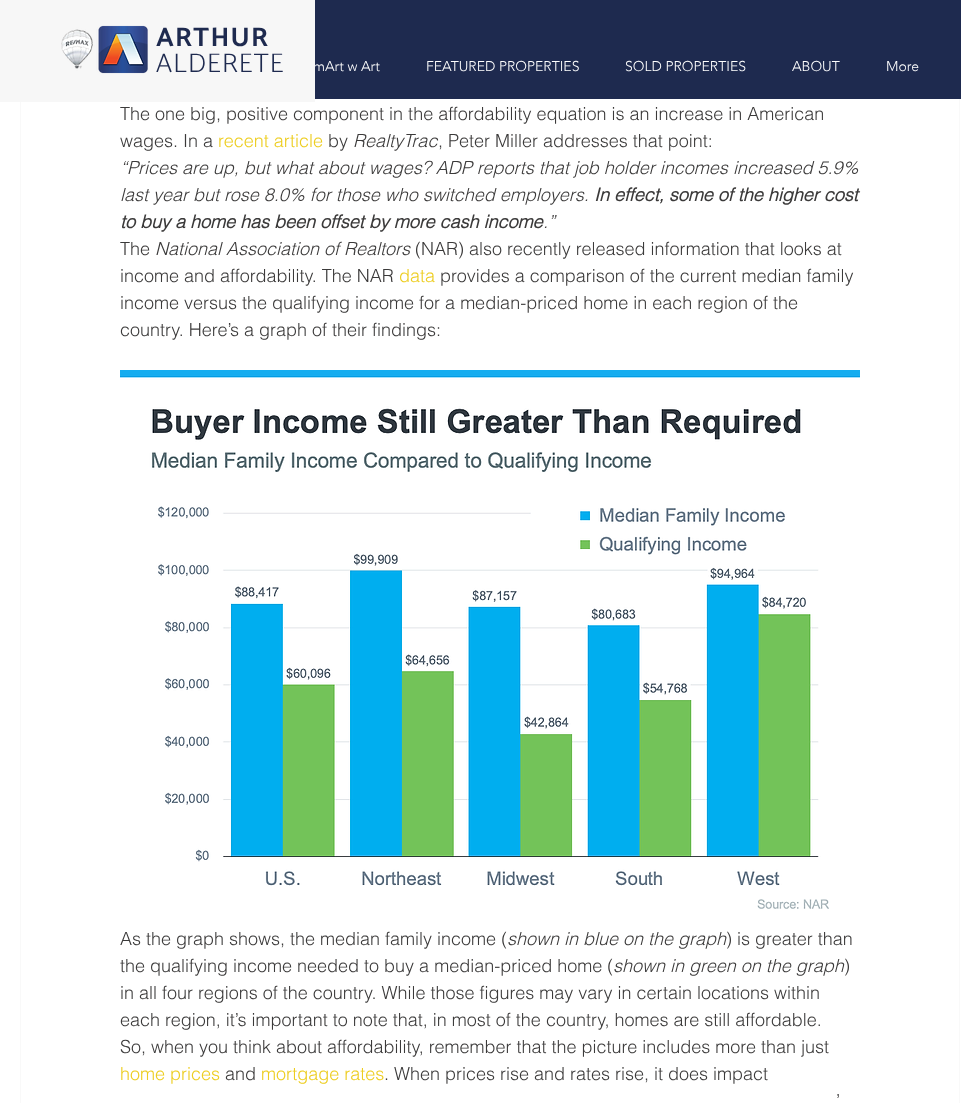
<!DOCTYPE html>
<meta charset="utf-8">
<style>body { margin: 0 } canvas { display: block }</style>
<canvas id="canvas" width="961" height="1103"></canvas>
<script type="module">
  const canvas = document.getElementById("canvas");
  const ctx = canvas.getContext("2d");
  ctx.miterLimit = 4;
  ctx.fontKerning = "normal";
  async function loadImage(src) {
    const img = new Image();
    img.src = src;
    await img.decode();
    return img;
  }

  ctx.fillStyle = "#ffffff";
  ctx.fillRect(0, 0, 961, 1103);
  ctx.strokeStyle = "#f9f9f9";
  ctx.strokeRect(20.5, -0.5, 939, 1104);
  ctx.fillStyle = "#1e2a4f";
  ctx.fillRect(315, 0, 646, 99);
  ctx.font = "300 14px 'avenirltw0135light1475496'";
  ctx.fillStyle = "#ffffff";
  ctx.fillText("mArt w Art", 313, 71);
  ctx.fillStyle = "#f7f7f7";
  ctx.fillRect(0, 0, 315, 102);
  ctx.drawImage(await loadImage("img1.png"), 61, 25, 87, 49);
  ctx.letterSpacing = "1.25px";
  ctx.font = "bold 27px Catamaran";
  ctx.fillStyle = "#1e2a4f";
  ctx.fillText("ARTHUR", 156, 46);
  ctx.font = "300 27px Catamaran";
  ctx.fillText("ALDERETE", 156, 72);
  ctx.letterSpacing = "0px";
  ctx.font = "300 14px 'avenirltw0135light1475496'";
  ctx.fillStyle = "#ffffff";
  ctx.fillText("FEATURED PROPERTIES", 426, 71);
  ctx.fillText("SOLD PROPERTIES", 625, 71);
  ctx.fillText("ABOUT", 792, 71);
  ctx.fillText("More", 886, 71);
  ctx.font = "300 18px helvetica";
  ctx.fillStyle = "#3b3a3a";
  ctx.fillText("The one big, positive component in the affordability equation is an increase in American", 120, 120);
  ctx.fillText("wages. In a", 120, 147);
  ctx.fillStyle = "#edcd1f";
  ctx.fillText("recent article", 218, 147);
  ctx.fillStyle = "#3b3a3a";
  ctx.fillText("by", 328, 147);
  ctx.font = "italic 300 18px helvetica";
  ctx.fillText("RealtyTrac", 353, 147);
  ctx.font = "300 18px helvetica";
  ctx.fillText(", Peter Miller addresses that point:", 438, 147);
  ctx.font = "italic 300 18px helvetica";
  ctx.fillText("“Prices are up, but what about wages? ADP reports that job holder incomes increased 5.9%", 120, 174);
  ctx.fillText("last year but rose 8.0% for those who switched employers.", 120, 201);
  ctx.font = "italic bold 18px helvetica";
  ctx.fillText("In effect, some of the higher cost", 594, 201);
  ctx.fillText("to buy a home has been offset by more cash income", 120, 228);
  ctx.font = "italic 300 18px helvetica";
  ctx.fillText(".”", 543, 228);
  ctx.font = "300 18px helvetica";
  ctx.fillText("The", 120, 255);
  ctx.font = "italic 300 18px helvetica";
  ctx.fillText("National Association of Realtors", 155, 255);
  ctx.font = "300 18px helvetica";
  ctx.fillText("(NAR) also recently released information that looks at", 415, 255);
  ctx.fillText("income and affordability. The NAR", 120, 282);
  ctx.fillStyle = "#edcd1f";
  ctx.fillText("data", 399, 282);
  ctx.fillStyle = "#3b3a3a";
  ctx.fillText("provides a comparison of the current median family", 440, 282);
  ctx.fillText("income versus the qualifying income for a median-priced home in each region of the", 120, 309);
  ctx.fillText("country. Here’s a graph of their findings:", 120, 336);
  ctx.drawImage(await loadImage("img2.png"), 120, 370, 740, 539);
  ctx.fillText("As the graph shows, the median family income (", 120, 945);
  ctx.font = "italic 300 18px helvetica";
  ctx.fillText("shown in blue on the graph", 507, 945);
  ctx.font = "300 18px helvetica";
  ctx.fillText(") is greater than", 726, 945);
  ctx.fillText("the qualifying income needed to buy a median-priced home (", 120, 972);
  ctx.font = "italic 300 18px helvetica";
  ctx.fillText("shown in green on the graph", 613, 972);
  ctx.font = "300 18px helvetica";
  ctx.fillText(")", 844, 972);
  ctx.fillText("in all four regions of the country. While those figures may vary in certain locations within", 120, 999);
  ctx.fillText("each region, it’s important to note that, in most of the country, homes are still affordable.", 120, 1026);
  ctx.fillText("So, when you think about affordability, remember that the picture includes more than just", 120, 1053);
  ctx.fillStyle = "#edcd1f";
  ctx.fillText("home prices", 120, 1080);
  ctx.fillStyle = "#3b3a3a";
  ctx.fillText("and", 225, 1080);
  ctx.fillStyle = "#edcd1f";
  ctx.fillText("mortgage rates", 261, 1080);
  ctx.fillStyle = "#3b3a3a";
  ctx.fillText(". When prices rise and rates rise, it does impact", 384, 1080);
  ctx.fillText("’", 836, 1107);
</script>
